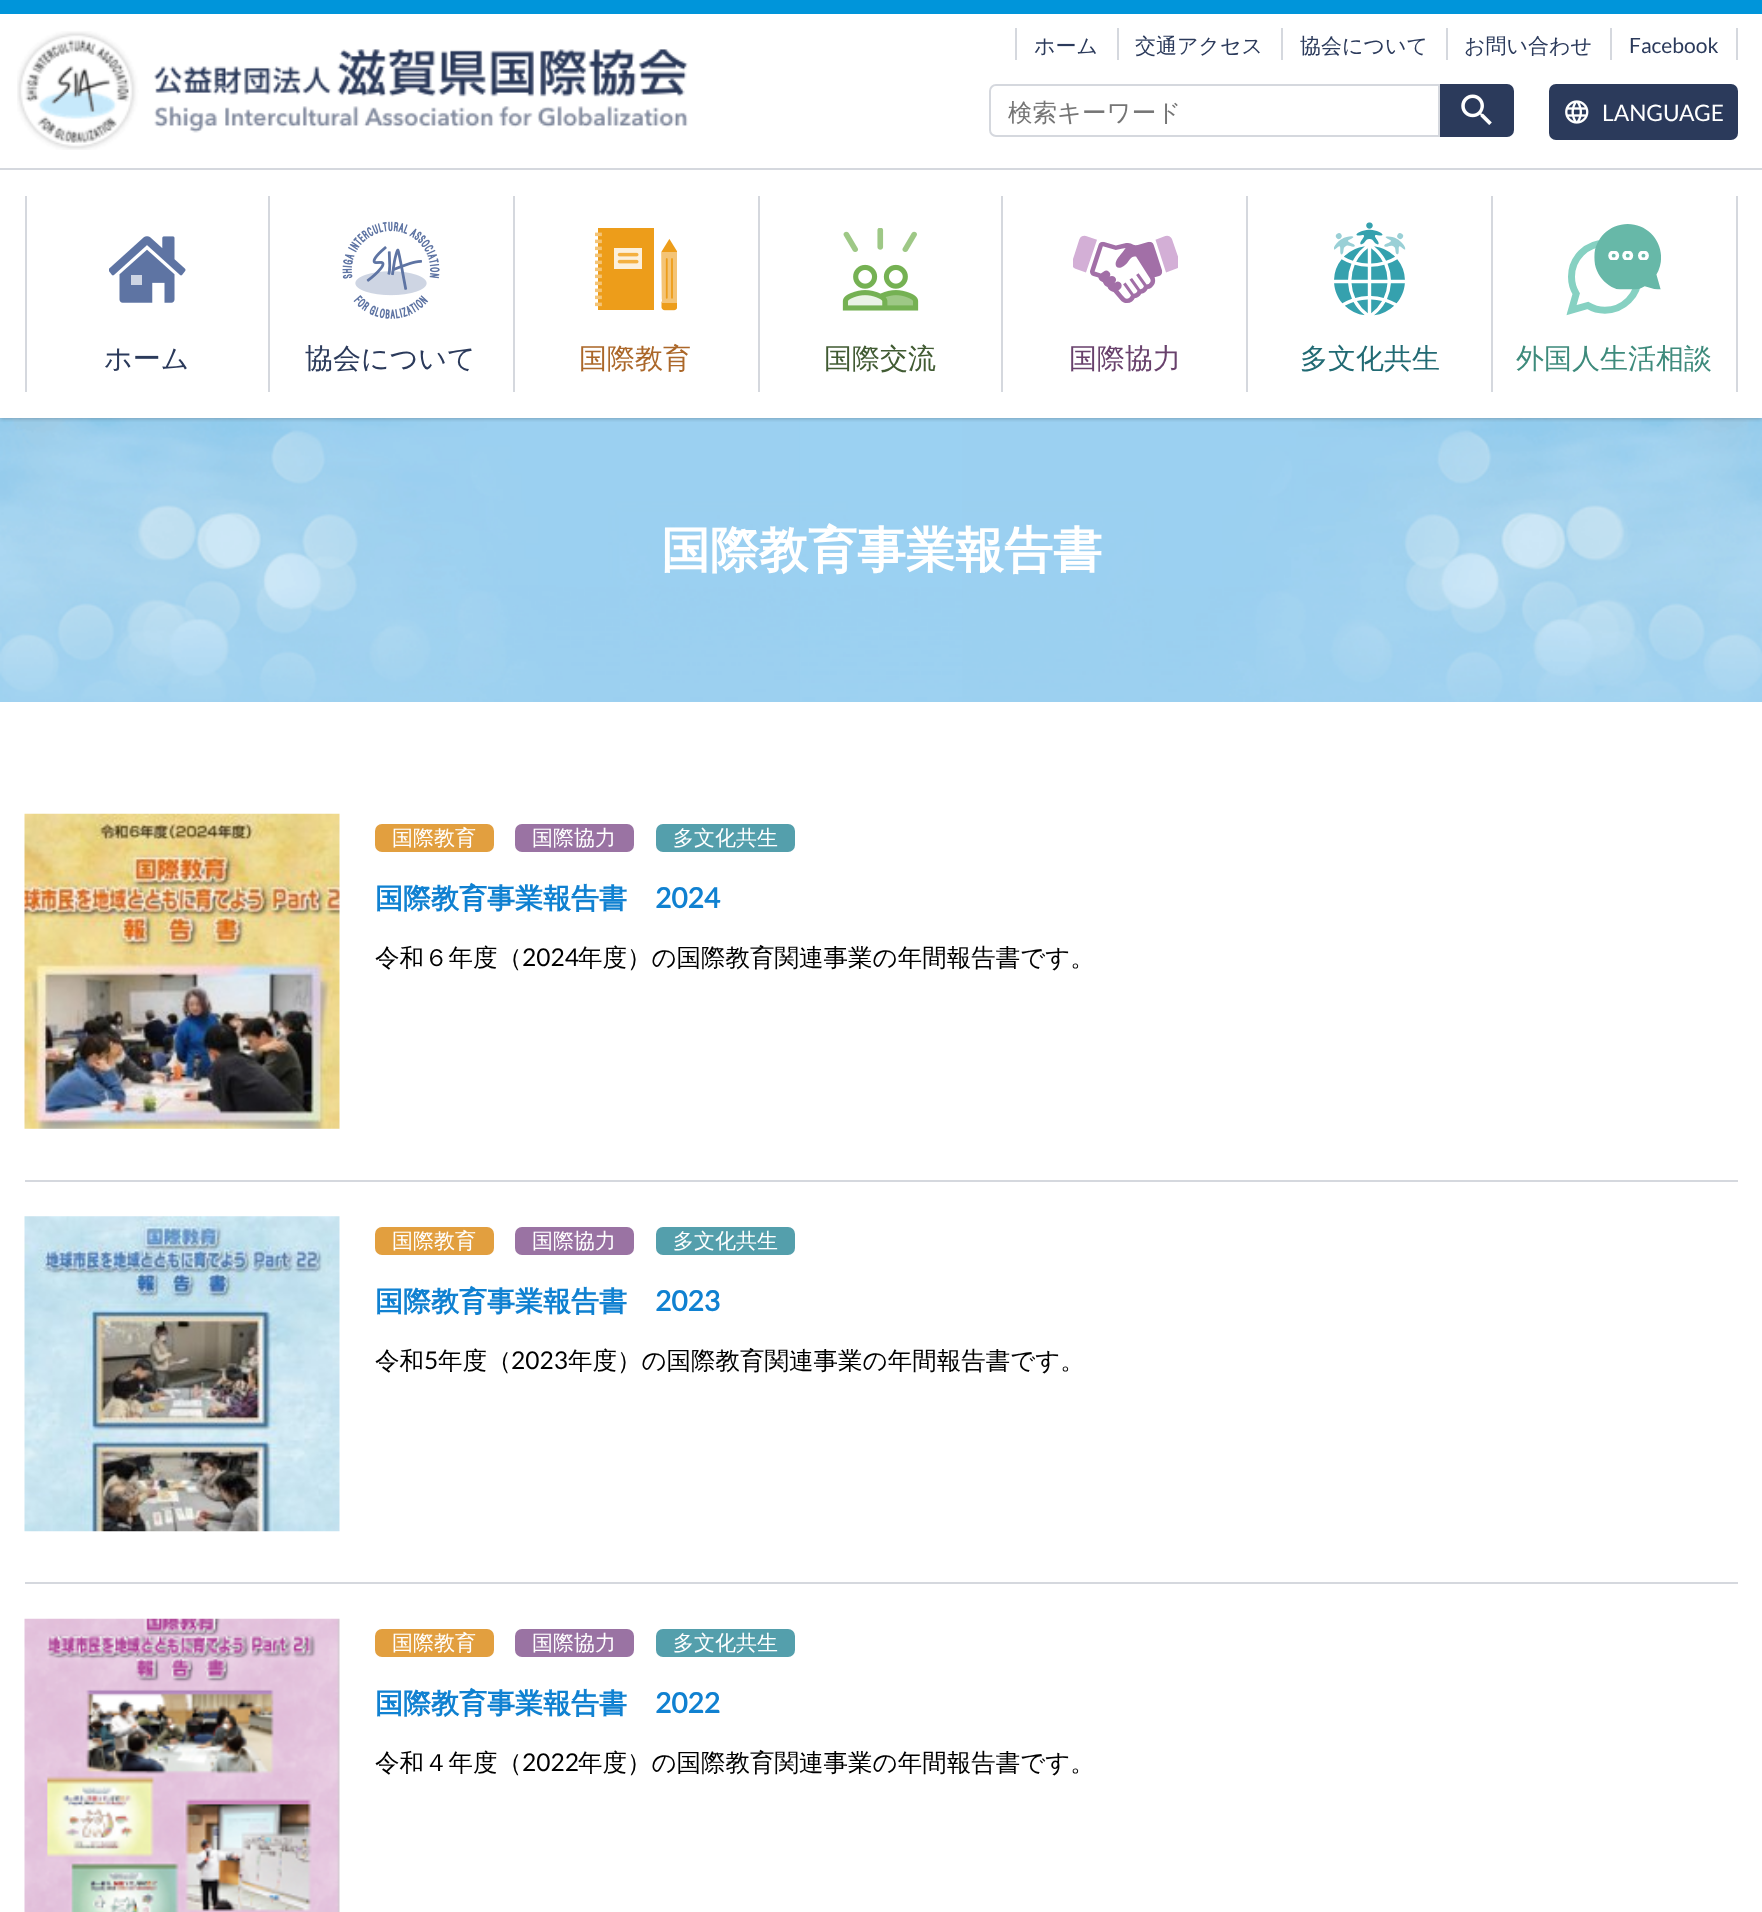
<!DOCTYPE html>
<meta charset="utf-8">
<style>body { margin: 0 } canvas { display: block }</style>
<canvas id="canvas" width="1762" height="1912"></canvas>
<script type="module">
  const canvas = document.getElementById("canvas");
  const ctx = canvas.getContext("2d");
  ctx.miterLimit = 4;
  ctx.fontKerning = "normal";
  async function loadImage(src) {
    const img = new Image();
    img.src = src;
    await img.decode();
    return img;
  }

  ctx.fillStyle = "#ffffff";
  ctx.fillRect(0, 0, 1762, 1912);
  ctx.fillStyle = "#0095da";
  ctx.fillRect(0, 0, 1762, 14);
  ctx.fillStyle = "#9cd0ef";
  ctx.fillRect(0, 418, 1762, 284);
  ctx.drawImage(await loadImage("img4.png"), 0, 418, 1762, 284);
  ctx.save();
  ctx.beginPath();
  ctx.rect(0, 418, 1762, 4);
  ctx.clip();
  ctx.fillStyle = "rgba(0, 0, 0, 0.3)";
  ctx.filter = "blur(2.5px)";
  ctx.beginPath();
  ctx.rect(0, 170, 1762, 248);
  ctx.fill();
  ctx.filter = "none";
  ctx.restore();
  ctx.fillStyle = "#ffffff";
  ctx.fillRect(0, 165, 1762, 3);
  ctx.fillStyle = "#d5d8de";
  ctx.fillRect(0, 168, 1762, 2);
  ctx.drawImage(await loadImage("img1.png"), 17, 31, 671, 119);
  ctx.fillRect(1117, 28, 2, 32);
  ctx.fillRect(1015, 28, 2, 32);
  ctx.font = "500 21px WenQuanYi Zen Hei";
  ctx.fillStyle = "#2b3a5b";
  ctx.fillText("ホーム", 1034, 53);
  ctx.fillStyle = "#d5d8de";
  ctx.fillRect(1281, 28, 2, 32);
  ctx.fillStyle = "#2b3a5b";
  ctx.fillText("交通アクセス", 1135, 53);
  ctx.fillStyle = "#d5d8de";
  ctx.fillRect(1446, 28, 2, 32);
  ctx.fillStyle = "#2b3a5b";
  ctx.fillText("協会について", 1300, 53);
  ctx.fillStyle = "#d5d8de";
  ctx.fillRect(1610, 28, 2, 32);
  ctx.fillStyle = "#2b3a5b";
  ctx.fillText("お問い合わせ", 1464, 53);
  ctx.fillStyle = "#d5d8de";
  ctx.fillRect(1736, 28, 2, 32);
  ctx.font = "21px Lato";
  ctx.fillStyle = "#2b3a5b";
  ctx.fillText("Facebook", 1629, 53);
  ctx.beginPath();
  ctx.roundRect(990, 85, 449, 51, [6, 0, 0, 6]);
  ctx.strokeStyle = "#d5d8de";
  ctx.lineWidth = 2;
  ctx.stroke();
  ctx.font = "500 24.5px WenQuanYi Zen Hei";
  ctx.fillStyle = "#757575";
  ctx.fillText("検索キーワード", 1008, 121);
  ctx.fillStyle = "#2b3a5b";
  ctx.beginPath();
  ctx.roundRect(1440, 84, 74, 53, [0, 7, 7, 0]);
  ctx.fill();
  ctx.drawImage(await loadImage("img2.png"), 1461, 94, 31, 31);
  ctx.beginPath();
  ctx.roundRect(1549, 84, 189, 56, 7);
  ctx.fill();
  ctx.drawImage(await loadImage("img3.png"), 1565, 100, 24, 24);
  ctx.font = "22.75px Lato";
  ctx.fillStyle = "#ffffff";
  ctx.fillText("LANGUAGE", 1602, 121);
  ctx.fillStyle = "#d5d8de";
  ctx.fillRect(268, 196, 2, 196);
  ctx.fillRect(25, 196, 2, 196);
  ctx.drawImage(await loadImage("img5.png"), 109, 236, 77, 67);
  ctx.font = "500 28px WenQuanYi Zen Hei";
  ctx.fillStyle = "#2b3a5b";
  ctx.fillText("ホーム", 104, 368);
  ctx.fillStyle = "#d5d8de";
  ctx.fillRect(513, 196, 2, 196);
  ctx.drawImage(await loadImage("img6.png"), 342, 221, 98, 98);
  ctx.fillStyle = "#2b3a5b";
  ctx.fillText("協会について", 305, 368);
  ctx.fillStyle = "#d5d8de";
  ctx.fillRect(758, 196, 2, 196);
  ctx.drawImage(await loadImage("img7.png"), 595, 228, 82, 83);
  ctx.fillStyle = "#ab6729";
  ctx.fillText("国際教育", 579, 368);
  ctx.fillStyle = "#d5d8de";
  ctx.fillRect(1001, 196, 2, 196);
  ctx.drawImage(await loadImage("img8.png"), 842, 228, 77, 83);
  ctx.fillStyle = "#415b33";
  ctx.fillText("国際交流", 824, 368);
  ctx.fillStyle = "#d5d8de";
  ctx.fillRect(1246, 196, 2, 196);
  ctx.drawImage(await loadImage("img9.png"), 1073, 235, 105, 68);
  ctx.fillStyle = "#68416c";
  ctx.fillText("国際協力", 1069, 368);
  ctx.fillStyle = "#d5d8de";
  ctx.fillRect(1491, 196, 2, 196);
  ctx.drawImage(await loadImage("img10.png"), 1334, 222, 72, 94);
  ctx.fillStyle = "#216a73";
  ctx.fillText("多文化共生", 1300, 368);
  ctx.fillStyle = "#d5d8de";
  ctx.fillRect(1736, 196, 2, 196);
  ctx.drawImage(await loadImage("img11.png"), 1566, 224, 95, 92);
  ctx.fillStyle = "#3e8b7c";
  ctx.fillText("外国人生活相談", 1516, 368);
  ctx.font = "bold 49px WenQuanYi Zen Hei";
  ctx.fillStyle = "#ffffff";
  ctx.fillText("国際教育事業報告書", 661, 567);
  ctx.fillStyle = "#d5d8de";
  ctx.fillRect(25, 1180, 1713, 2);
  ctx.drawImage(await loadImage("img12.png"), 24, 813, 316, 316);
  ctx.fillStyle = "#e29f3f";
  ctx.beginPath();
  ctx.roundRect(375, 824, 119, 28, 7);
  ctx.fill();
  ctx.font = "500 21px WenQuanYi Zen Hei";
  ctx.fillStyle = "#ffffff";
  ctx.fillText("国際教育", 392, 845);
  ctx.fillStyle = "#9a73a3";
  ctx.beginPath();
  ctx.roundRect(515, 824, 119, 28, 7);
  ctx.fill();
  ctx.fillStyle = "#ffffff";
  ctx.fillText("国際協力", 532, 845);
  ctx.fillStyle = "#549fac";
  ctx.beginPath();
  ctx.roundRect(656, 824, 139, 28, 7);
  ctx.fill();
  ctx.fillStyle = "#ffffff";
  ctx.fillText("多文化共生", 673, 845);
  ctx.font = "bold 28px WenQuanYi Zen Hei";
  ctx.fillStyle = "#1081d1";
  ctx.fillText("国際教育事業報告書", 375, 908);
  ctx.font = "bold 28px Lato";
  ctx.fillText("2024", 655, 908);
  ctx.font = "500 24.5px WenQuanYi Zen Hei";
  ctx.fillStyle = "#000000";
  ctx.fillText("令和６年度（", 375, 966);
  ctx.font = "24.5px Lato";
  ctx.fillText("2024", 522, 966);
  ctx.font = "500 24.5px WenQuanYi Zen Hei";
  ctx.fillText("年度）の国際教育関連事業の年間報告書です。", 578, 966);
  ctx.fillStyle = "#d5d8de";
  ctx.fillRect(25, 1582, 1713, 2);
  ctx.drawImage(await loadImage("img13.png"), 24, 1216, 316, 316);
  ctx.fillStyle = "#e29f3f";
  ctx.beginPath();
  ctx.roundRect(375, 1227, 119, 28, 7);
  ctx.fill();
  ctx.font = "500 21px WenQuanYi Zen Hei";
  ctx.fillStyle = "#ffffff";
  ctx.fillText("国際教育", 392, 1248);
  ctx.fillStyle = "#9a73a3";
  ctx.beginPath();
  ctx.roundRect(515, 1227, 119, 28, 7);
  ctx.fill();
  ctx.fillStyle = "#ffffff";
  ctx.fillText("国際協力", 532, 1248);
  ctx.fillStyle = "#549fac";
  ctx.beginPath();
  ctx.roundRect(656, 1227, 139, 28, 7);
  ctx.fill();
  ctx.fillStyle = "#ffffff";
  ctx.fillText("多文化共生", 673, 1248);
  ctx.font = "bold 28px WenQuanYi Zen Hei";
  ctx.fillStyle = "#1081d1";
  ctx.fillText("国際教育事業報告書", 375, 1311);
  ctx.font = "bold 28px Lato";
  ctx.fillText("2023", 655, 1311);
  ctx.font = "500 24.5px WenQuanYi Zen Hei";
  ctx.fillStyle = "#000000";
  ctx.fillText("令和", 375, 1369);
  ctx.font = "24.5px Lato";
  ctx.fillText("5", 424, 1369);
  ctx.font = "500 24.5px WenQuanYi Zen Hei";
  ctx.fillText("年度（", 438, 1369);
  ctx.font = "24.5px Lato";
  ctx.fillText("2023", 511, 1369);
  ctx.font = "500 24.5px WenQuanYi Zen Hei";
  ctx.fillText("年度）の国際教育関連事業の年間報告書です。", 568, 1369);
  ctx.drawImage(await loadImage("img14.png"), 24, 1618, 316, 294);
  ctx.fillStyle = "#e29f3f";
  ctx.beginPath();
  ctx.roundRect(375, 1629, 119, 28, 7);
  ctx.fill();
  ctx.font = "500 21px WenQuanYi Zen Hei";
  ctx.fillStyle = "#ffffff";
  ctx.fillText("国際教育", 392, 1650);
  ctx.fillStyle = "#9a73a3";
  ctx.beginPath();
  ctx.roundRect(515, 1629, 119, 28, 7);
  ctx.fill();
  ctx.fillStyle = "#ffffff";
  ctx.fillText("国際協力", 532, 1650);
  ctx.fillStyle = "#549fac";
  ctx.beginPath();
  ctx.roundRect(656, 1629, 139, 28, 7);
  ctx.fill();
  ctx.fillStyle = "#ffffff";
  ctx.fillText("多文化共生", 673, 1650);
  ctx.font = "bold 28px WenQuanYi Zen Hei";
  ctx.fillStyle = "#1081d1";
  ctx.fillText("国際教育事業報告書", 375, 1713);
  ctx.font = "bold 28px Lato";
  ctx.fillText("2022", 655, 1713);
  ctx.font = "500 24.5px WenQuanYi Zen Hei";
  ctx.fillStyle = "#000000";
  ctx.fillText("令和４年度（", 375, 1771);
  ctx.font = "24.5px Lato";
  ctx.fillText("2022", 522, 1771);
  ctx.font = "500 24.5px WenQuanYi Zen Hei";
  ctx.fillText("年度）の国際教育関連事業の年間報告書です。", 578, 1771);
</script>
